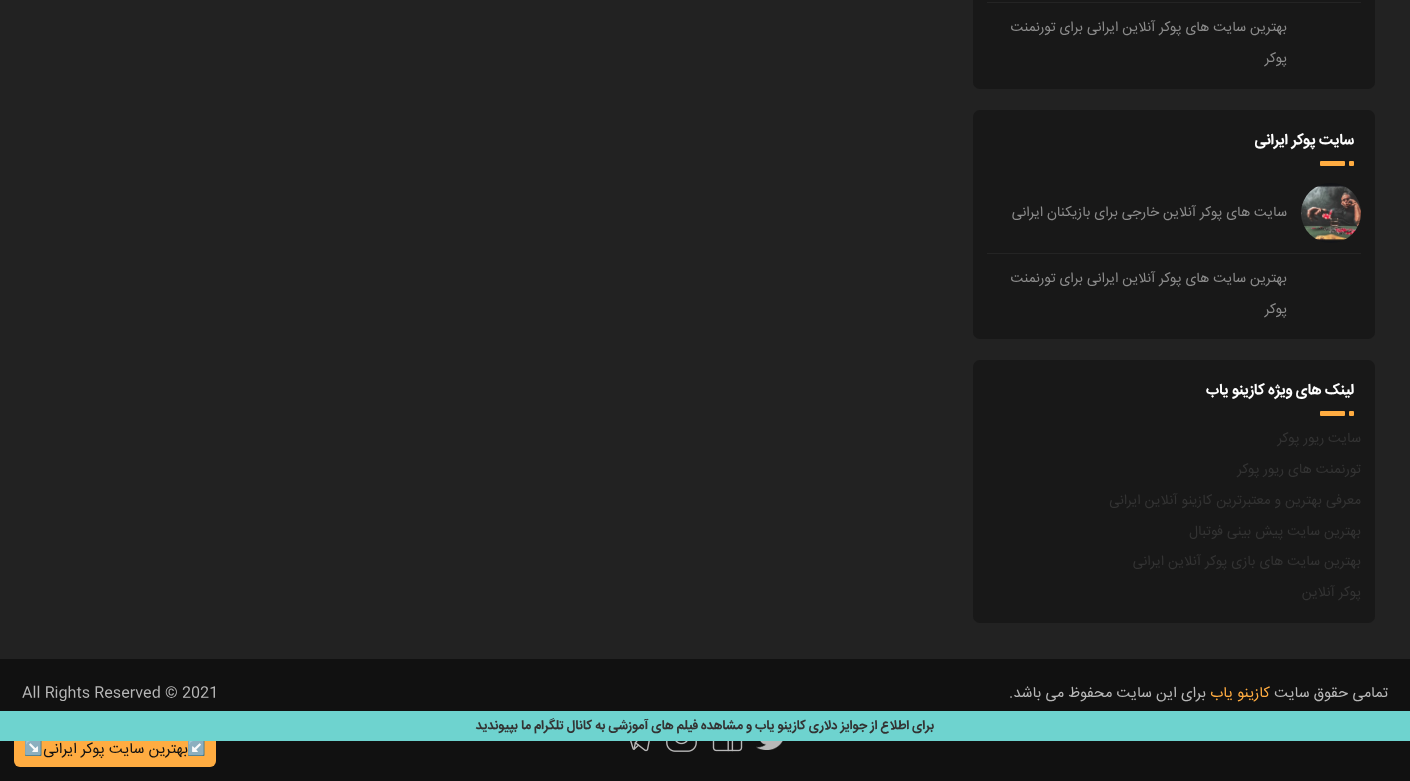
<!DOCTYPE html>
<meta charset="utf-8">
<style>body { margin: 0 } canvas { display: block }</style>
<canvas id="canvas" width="1410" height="781"></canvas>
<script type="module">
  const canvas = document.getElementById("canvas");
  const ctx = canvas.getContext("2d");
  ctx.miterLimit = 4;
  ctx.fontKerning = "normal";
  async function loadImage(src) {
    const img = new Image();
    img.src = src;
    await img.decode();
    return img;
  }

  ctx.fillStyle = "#222222";
  ctx.fillRect(0, 0, 1410, 781);
  ctx.fillStyle = "#181818";
  ctx.beginPath();
  ctx.roundRect(973, -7, 402, 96, 7);
  ctx.fill();
  ctx.fillStyle = "#242424";
  ctx.fillRect(987, 2, 374, 1);
  ctx.direction = "rtl";
  ctx.font = "14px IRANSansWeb";
  ctx.fillStyle = "#8c8c8c";
  ctx.fillText("بهترین سایت های پوکر آنلاین ایرانی برای تورنمنت", 1287, 31);
  ctx.fillText("پوکر", 1287, 62);
  ctx.fillStyle = "#181818";
  ctx.beginPath();
  ctx.roundRect(973, 110, 402, 229, 7);
  ctx.fill();
  ctx.font = "bold 15px IRANSansWeb";
  ctx.fillStyle = "#ffffff";
  ctx.fillText("سایت پوکر ایرانی", 1354, 144);
  ctx.fillStyle = "#ffac41";
  ctx.beginPath();
  ctx.roundRect(1349, 161, 5, 5, 1);
  ctx.fill();
  ctx.beginPath();
  ctx.roundRect(1320, 161, 25, 5, 1);
  ctx.fill();
  ctx.fillStyle = "#242424";
  ctx.fillRect(987, 253, 374, 1);
  ctx.drawImage(await loadImage("img1.png"), 1301, 183, 60, 60);
  ctx.font = "14px IRANSansWeb";
  ctx.fillStyle = "#8c8c8c";
  ctx.fillText("سایت های پوکر آنلاین خارجی برای بازیکنان ایرانی", 1287, 216);
  ctx.fillText("بهترین سایت های پوکر آنلاین ایرانی برای تورنمنت", 1287, 282);
  ctx.fillText("پوکر", 1287, 313);
  ctx.fillStyle = "#181818";
  ctx.beginPath();
  ctx.roundRect(973, 360, 402, 263, 7);
  ctx.fill();
  ctx.font = "bold 15px IRANSansWeb";
  ctx.fillStyle = "#ffffff";
  ctx.fillText("لینک های ویژه کازینو یاب", 1354, 394);
  ctx.fillStyle = "#ffac41";
  ctx.beginPath();
  ctx.roundRect(1349, 411, 5, 5, 1);
  ctx.fill();
  ctx.beginPath();
  ctx.roundRect(1320, 411, 25, 5, 1);
  ctx.fill();
  ctx.font = "14px IRANSansWeb";
  ctx.fillStyle = "#333333";
  ctx.fillText("سایت ریور پوکر", 1361, 442);
  ctx.fillText("تورنمنت های ریور پوکر", 1361, 473);
  ctx.fillText("معرفی بهترین و معتبرترین کازینو آنلاین ایرانی", 1361, 504);
  ctx.fillText("بهترین سایت پیش بینی فوتبال", 1361, 535);
  ctx.fillText("بهترین سایت های بازی پوکر آنلاین ایرانی", 1361, 565);
  ctx.fillText("پوکر آنلاین", 1361, 596);
  ctx.fillStyle = "#111111";
  ctx.fillRect(0, 659, 1410, 122);
  ctx.font = "15px IRANSansWeb";
  ctx.fillStyle = "#b8b8b8";
  ctx.fillText("تمامی حقوق سایت", 1388, 697);
  ctx.fillStyle = "#ffac41";
  ctx.fillText("کازینو یاب", 1270, 697);
  ctx.fillStyle = "#b8b8b8";
  ctx.fillText("برای این سایت محفوظ می باشد.", 1206, 697);
  ctx.direction = "ltr";
  ctx.fillText("All Rights Reserved © 2021", 22, 697);
  ctx.drawImage(await loadImage("img2.png"), 756, 741, 27, 9);
  ctx.drawImage(await loadImage("img3.png"), 712, 741, 31, 11);
  ctx.drawImage(await loadImage("img4.png"), 666, 741, 31, 11);
  ctx.drawImage(await loadImage("img5.png"), 630, 741, 20, 11);
  ctx.fillStyle = "#ffac41";
  ctx.beginPath();
  ctx.roundRect(14, 732, 202, 35, 6);
  ctx.fill();
  ctx.direction = "rtl";
  ctx.font = "15px Noto Color Emoji";
  ctx.fillStyle = "#111111";
  ctx.fillText("↙️", 206, 753);
  ctx.font = "15px IRANSansWeb";
  ctx.fillText("بهترین سایت پوکر ایرانی", 188, 753);
  ctx.font = "15px Noto Color Emoji";
  ctx.fillText("↘️", 43, 753);
  ctx.fillStyle = "#6ed3cf";
  ctx.fillRect(0, 711, 1410, 30);
  ctx.font = "bold 13px IRANSansWeb";
  ctx.fillStyle = "#333333";
  ctx.fillText("برای اطلاع از جوایز دلاری کازینو یاب و مشاهده فیلم های آموزشی به کانال تلگرام ما بپیوندید", 934, 729);
</script>
